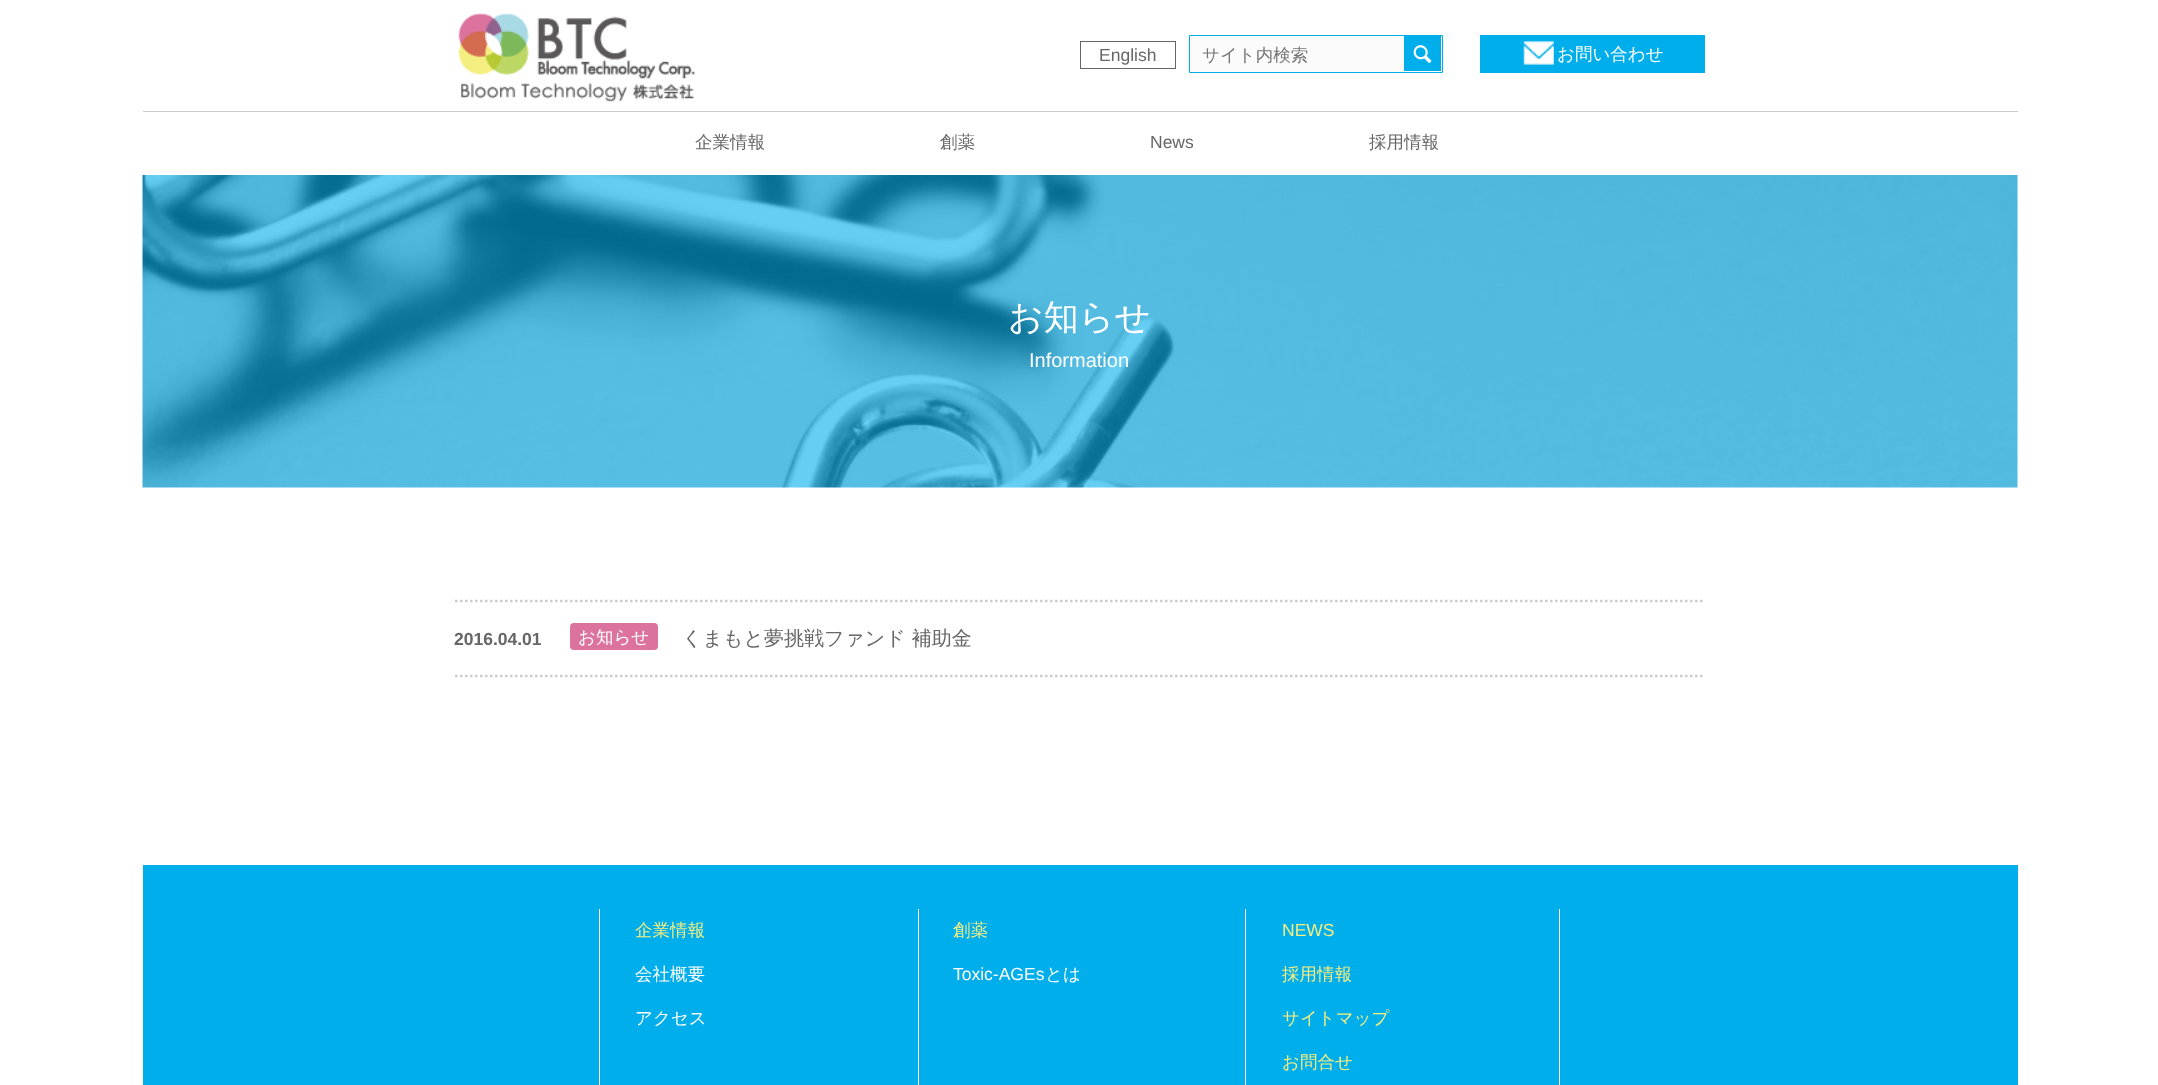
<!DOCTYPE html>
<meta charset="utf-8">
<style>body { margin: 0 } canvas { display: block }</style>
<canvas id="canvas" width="2158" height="1085"></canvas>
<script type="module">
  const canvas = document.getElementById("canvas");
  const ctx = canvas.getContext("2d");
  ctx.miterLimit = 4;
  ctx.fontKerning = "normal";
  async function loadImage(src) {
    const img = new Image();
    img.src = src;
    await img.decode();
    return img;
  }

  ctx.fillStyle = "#ffffff";
  ctx.fillRect(0, 0, 2158, 1085);
  ctx.fillStyle = "#cccccc";
  ctx.fillRect(143, 111, 1875, 1);
  ctx.drawImage(await loadImage("img1.png"), 458, 13, 238, 89);
  ctx.strokeStyle = "#666666";
  ctx.strokeRect(1080.5, 41.5, 95, 27);
  ctx.font = "17.5px Liberation Sans";
  ctx.fillStyle = "#666666";
  ctx.fillText("English", 1099, 61);
  ctx.fillStyle = "#fbfbfb";
  ctx.beginPath();
  ctx.rect(1189.5, 35.5, 253, 37);
  ctx.fill();
  ctx.strokeStyle = "#00aeeb";
  ctx.stroke();
  ctx.font = "500 17.5px WenQuanYi Zen Hei";
  ctx.fillStyle = "#757575";
  ctx.fillText("サイト内検索", 1202, 61);
  ctx.fillStyle = "#00aeeb";
  ctx.fillRect(1404, 36, 37, 35);
  ctx.drawImage(await loadImage("img2.png"), 1413, 45, 19, 18);
  ctx.fillRect(1480, 35, 225, 38);
  ctx.drawImage(await loadImage("img3.png"), 1523, 41, 31, 24);
  ctx.fillStyle = "#ffffff";
  ctx.fillText("お問い合わせ", 1557, 60);
  ctx.fillStyle = "#666666";
  ctx.fillText("企業情報", 695, 148);
  ctx.fillText("創薬", 940, 148);
  ctx.font = "17.5px Liberation Sans";
  ctx.fillText("News", 1150, 148);
  ctx.font = "500 17.5px WenQuanYi Zen Hei";
  ctx.fillText("採用情報", 1369, 148);
  ctx.drawImage(await loadImage("img4.png"), 142, 175, 1876, 313);
  ctx.font = "500 35px WenQuanYi Zen Hei";
  ctx.fillStyle = "#ffffff";
  ctx.fillText("お知らせ", 1008, 329);
  ctx.font = "20px Liberation Sans";
  ctx.fillText("Information", 1029, 367);
  ctx.beginPath();
  ctx.moveTo(455, 676);
  ctx.lineTo(1705, 676);
  ctx.strokeStyle = "#cccccc";
  ctx.lineWidth = 2.5;
  ctx.setLineDash([2.5, 2.5]);
  ctx.stroke();
  ctx.beginPath();
  ctx.moveTo(455, 601);
  ctx.lineTo(1705, 601);
  ctx.stroke();
  ctx.font = "bold 17.5px Liberation Sans";
  ctx.fillStyle = "#666666";
  ctx.fillText("2016.04.01", 454, 645);
  ctx.fillStyle = "#dc739e";
  ctx.beginPath();
  ctx.roundRect(570, 623, 88, 27, 4);
  ctx.fill();
  ctx.font = "500 17.5px WenQuanYi Zen Hei";
  ctx.fillStyle = "#ffffff";
  ctx.fillText("お知らせ", 578, 643);
  ctx.font = "500 20px WenQuanYi Zen Hei";
  ctx.fillStyle = "#666666";
  ctx.fillText("くまもと夢挑戦ファンド 補助金", 682, 645);
  ctx.fillStyle = "#00aeeb";
  ctx.fillRect(143, 865, 1875, 220);
  ctx.fillStyle = "#ffffff";
  ctx.fillRect(599, 909, 1, 176);
  ctx.font = "500 17.5px WenQuanYi Zen Hei";
  ctx.fillStyle = "#f5ee81";
  ctx.fillText("企業情報", 635, 936);
  ctx.fillStyle = "#ffffff";
  ctx.fillText("会社概要", 635, 980);
  ctx.fillText("アクセス", 635, 1024);
  ctx.fillRect(918, 909, 1, 176);
  ctx.fillStyle = "#f5ee81";
  ctx.fillText("創薬", 953, 936);
  ctx.font = "17.5px Liberation Sans";
  ctx.fillStyle = "#ffffff";
  ctx.fillText("Toxic-AGEs", 953, 980);
  ctx.font = "500 17.5px WenQuanYi Zen Hei";
  ctx.fillText("とは", 1045, 980);
  ctx.fillRect(1559, 909, 1, 176);
  ctx.fillRect(1245, 909, 1, 176);
  ctx.font = "17.5px Liberation Sans";
  ctx.fillStyle = "#f5ee81";
  ctx.fillText("NEWS", 1282, 936);
  ctx.font = "500 17.5px WenQuanYi Zen Hei";
  ctx.fillText("採用情報", 1282, 980);
  ctx.fillText("サイトマップ", 1282, 1024);
  ctx.fillText("お問合せ", 1282, 1068);
</script>
